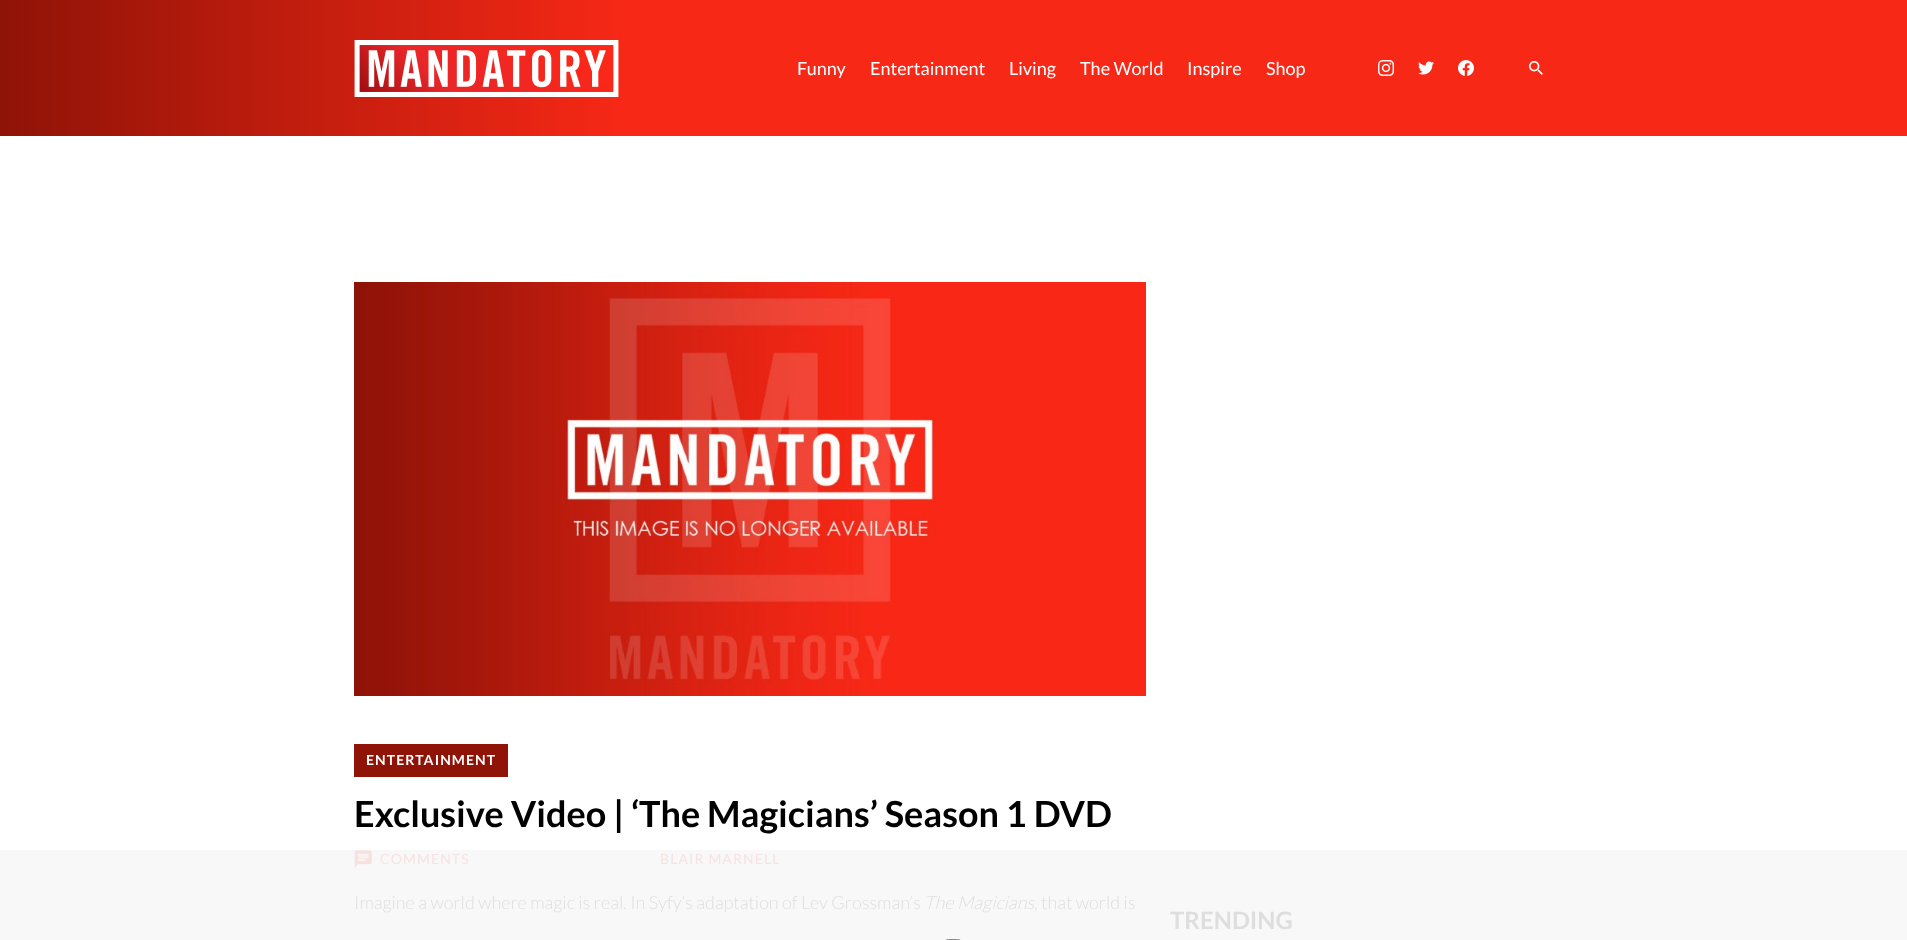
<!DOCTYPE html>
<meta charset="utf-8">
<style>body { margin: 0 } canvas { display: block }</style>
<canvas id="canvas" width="1907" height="940"></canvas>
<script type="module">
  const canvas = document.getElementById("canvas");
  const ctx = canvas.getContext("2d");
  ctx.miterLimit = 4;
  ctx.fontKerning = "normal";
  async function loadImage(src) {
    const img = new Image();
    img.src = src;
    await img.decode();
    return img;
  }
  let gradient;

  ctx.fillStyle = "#ffffff";
  ctx.fillRect(0, 0, 1907, 940);
  ctx.fillStyle = "#f8f8f8";
  ctx.fillRect(0, 850, 1907, 90);
  gradient = ctx.createLinearGradient(0, 68, 1907, 68);
  gradient.addColorStop(0, "#8f1307");
  gradient.addColorStop(0.33, "#f82816");
  ctx.fillStyle = gradient;
  ctx.fillRect(0, 0, 1907, 136);
  ctx.drawImage(await loadImage("img1.png"), 354, 40, 265, 57);
  ctx.font = "18px Lato";
  ctx.fillStyle = "#ffffff";
  ctx.fillText("Funny", 797, 75);
  ctx.fillText("Entertainment", 870, 75);
  ctx.fillText("Living", 1009, 75);
  ctx.fillText("The World", 1080, 75);
  ctx.fillText("Inspire", 1187, 75);
  ctx.fillText("Shop", 1266, 75);
  ctx.drawImage(await loadImage("img2.png"), 1378, 60, 16, 16);
  ctx.drawImage(await loadImage("img3.png"), 1418, 61, 16, 14);
  ctx.drawImage(await loadImage("img4.png"), 1458, 60, 16, 16);
  ctx.drawImage(await loadImage("img5.png"), 1529, 61, 14, 14);
  ctx.drawImage(await loadImage("img6.png"), 354, 282, 792, 414);
  ctx.fillStyle = "#8f1307";
  ctx.fillRect(354, 744, 154, 33);
  ctx.letterSpacing = "1.1px";
  ctx.font = "bold 14px Lato";
  ctx.fillStyle = "#ffffff";
  ctx.fillText("ENTERTAINMENT", 366, 765);
  ctx.letterSpacing = "0px";
  ctx.font = "bold 36px Lato";
  ctx.fillStyle = "#000000";
  ctx.fillText("Exclusive Video | ‘The Magicians’ Season 1 DVD", 354, 827);
  ctx.drawImage(await loadImage("img7.png"), 354, 850, 18, 18);
  ctx.letterSpacing = "1.1px";
  ctx.font = "14px Lato";
  ctx.fillStyle = "#f7e2e1";
  ctx.fillText("COMMENTS", 380, 864);
  ctx.fillText("BLAIR MARNELL", 660, 864);
  ctx.letterSpacing = "0px";
  ctx.font = "300 18px Lato";
  ctx.fillStyle = "#dedede";
  ctx.fillText("Imagine a world where magic is real. In Syfy’s adaptation of Lev Grossman’s", 354, 909);
  ctx.font = "italic 300 18px Lato";
  ctx.fillText("The Magicians", 924, 909);
  ctx.font = "300 18px Lato";
  ctx.fillText(", that world is", 1034, 909);
  ctx.font = "bold 24px Lato";
  ctx.fillText("TRENDING", 1170, 929);
  ctx.beginPath();
  ctx.roundRect(942.5, 939.5, 21, 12, 10.5);
  ctx.strokeStyle = "#888888";
  ctx.stroke();
</script>
